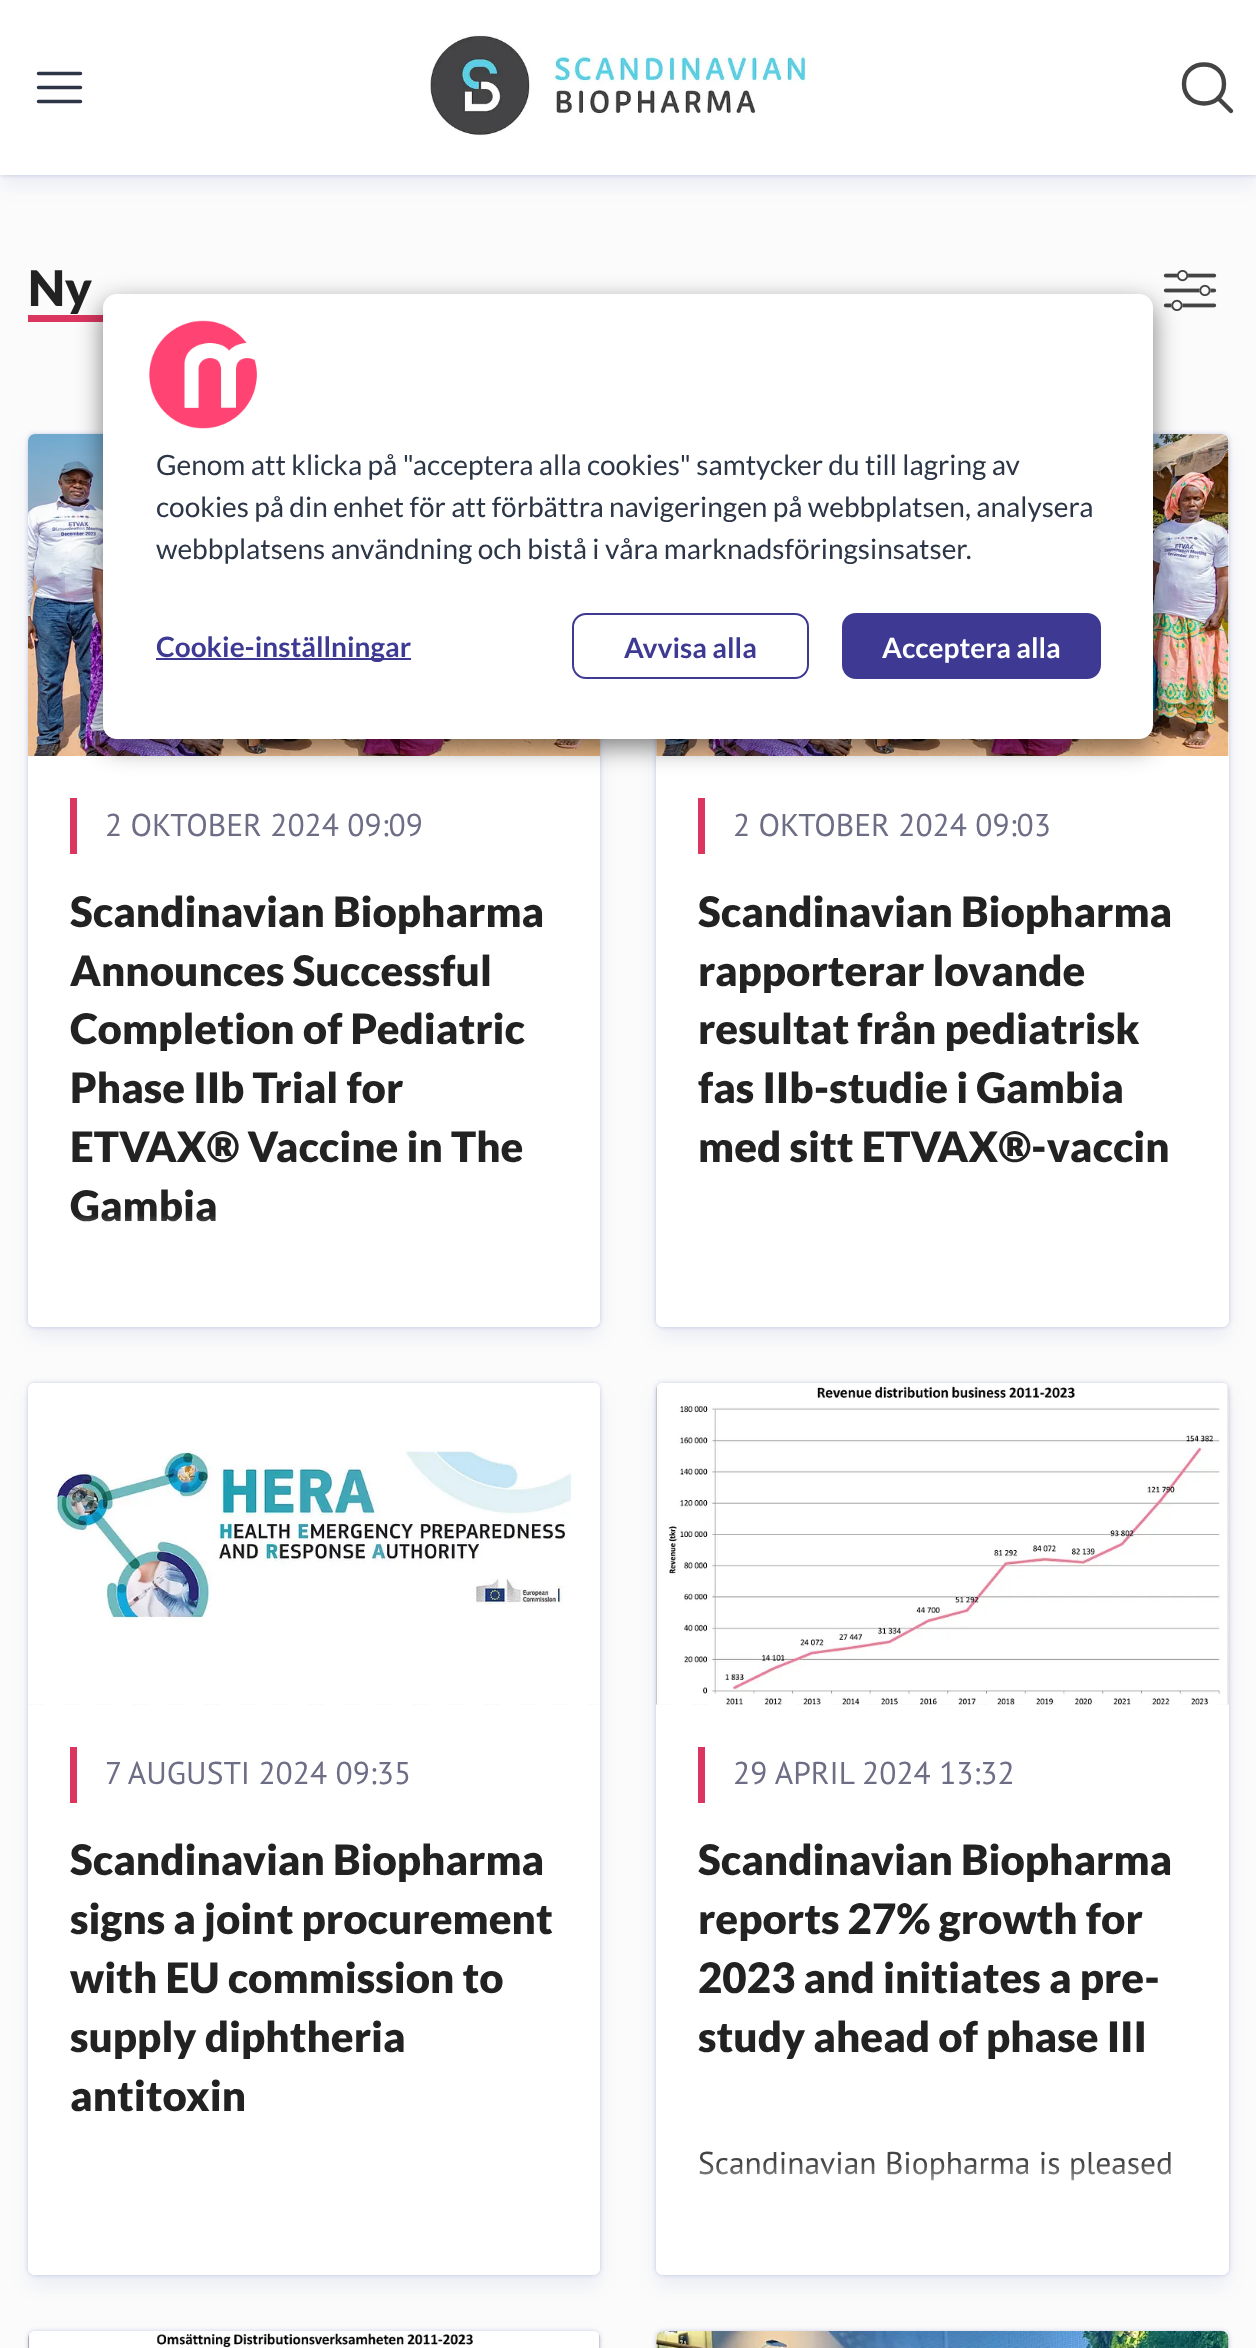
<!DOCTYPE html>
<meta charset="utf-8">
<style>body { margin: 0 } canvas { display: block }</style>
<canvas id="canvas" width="1256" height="2348"></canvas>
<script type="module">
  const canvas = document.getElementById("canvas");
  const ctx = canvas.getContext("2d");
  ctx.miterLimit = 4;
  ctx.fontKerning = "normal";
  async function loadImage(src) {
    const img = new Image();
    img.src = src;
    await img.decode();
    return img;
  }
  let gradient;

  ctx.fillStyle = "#fbfbfb";
  ctx.fillRect(0, 0, 1256, 2348);
  ctx.fillStyle = "rgba(49, 73, 164, 0.14)";
  ctx.filter = "blur(2px)";
  ctx.beginPath();
  ctx.rect(0, 0, 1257, 175);
  ctx.fill();
  ctx.filter = "none";
  ctx.fillStyle = "rgba(49, 73, 164, 0.1)";
  ctx.filter = "blur(2.5px)";
  ctx.beginPath();
  ctx.rect(0, 0, 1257, 175);
  ctx.fill();
  ctx.filter = "none";
  ctx.fillStyle = "rgba(49, 73, 164, 0.08)";
  ctx.filter = "blur(9px)";
  ctx.beginPath();
  ctx.rect(0, 11, 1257, 175);
  ctx.fill();
  ctx.filter = "none";
  ctx.fillStyle = "#ffffff";
  ctx.fillRect(0, 0, 1256, 175);
  ctx.beginPath();
  ctx.moveTo(38.5, 87.5);
  ctx.lineTo(80.5, 87.5);
  ctx.moveTo(38.5, 73.5);
  ctx.lineTo(80.5, 73.5);
  ctx.moveTo(38.5, 101.5);
  ctx.lineTo(80.5, 101.5);
  ctx.strokeStyle = "#2c3647";
  ctx.lineWidth = 3.5;
  ctx.lineCap = "round";
  ctx.lineJoin = "round";
  ctx.stroke();
  ctx.drawImage(await loadImage("img1.png"), 430, 34, 376, 102);
  ctx.beginPath();
  ctx.moveTo(1224, 84);
  ctx.bezierCurveTo(1224, 110, 1184, 110, 1184, 84);
  ctx.bezierCurveTo(1184, 58, 1224, 58, 1224, 84);
  ctx.closePath();
  ctx.moveTo(1231, 111);
  ctx.lineTo(1218, 98);
  ctx.strokeStyle = "#444444";
  ctx.lineWidth = 4.4;
  ctx.lineJoin = "miter";
  ctx.stroke();
  ctx.fillStyle = "#da365f";
  ctx.fillRect(28, 315, 75, 7);
  ctx.font = "900 49px Lato";
  ctx.fillStyle = "#222222";
  ctx.fillText("Ny", 28, 306);
  ctx.drawImage(await loadImage("img2.png"), 1163, 270, 54, 41);
  ctx.fillStyle = "rgba(49, 73, 164, 0.14)";
  ctx.filter = "blur(2px)";
  ctx.beginPath();
  ctx.roundRect(28, 434, 572, 893, 7);
  ctx.fill();
  ctx.filter = "none";
  ctx.fillStyle = "rgba(49, 73, 164, 0.1)";
  ctx.filter = "blur(2.5px)";
  ctx.beginPath();
  ctx.roundRect(28, 434, 572, 893, 7);
  ctx.fill();
  ctx.filter = "none";
  ctx.fillStyle = "rgba(49, 73, 164, 0.08)";
  ctx.filter = "blur(9px)";
  ctx.beginPath();
  ctx.roundRect(28, 445, 572, 892, 7);
  ctx.fill();
  ctx.filter = "none";
  ctx.fillStyle = "#ffffff";
  ctx.beginPath();
  ctx.roundRect(28, 434, 572, 893, 7);
  ctx.fill();
  ctx.drawImage(await loadImage("img3.png"), 28, 434, 7, 7);
  ctx.drawImage(await loadImage("img4.png"), 28, 434, 573, 322);
  ctx.fillStyle = "#da365f";
  ctx.fillRect(70, 798, 7, 56);
  ctx.font = "31.5px PT Sans";
  ctx.fillStyle = "#6e6d86";
  ctx.fillText("2 OKTOBER 2024 09:09", 105, 836);
  ctx.font = "900 42px Lato";
  ctx.fillStyle = "#222222";
  ctx.fillText("Scandinavian Biopharma", 70, 927);
  ctx.fillText("Announces Successful", 70, 986);
  ctx.fillText("Completion of Pediatric", 70, 1044);
  ctx.fillText("Phase IIb Trial for", 70, 1103);
  ctx.fillText("ETVAX® Vaccine in The", 70, 1162);
  ctx.fillText("Gambia", 70, 1221);
  gradient = ctx.createLinearGradient(314, 1215, 314, 1327);
  gradient.addColorStop(0, "rgba(255, 255, 255, 0)");
  gradient.addColorStop(0.25, "rgba(255, 255, 255, 0.7)");
  gradient.addColorStop(0.5, "#ffffff");
  ctx.fillStyle = gradient;
  ctx.beginPath();
  ctx.roundRect(28, 1215, 572, 112, [0, 0, 7, 7]);
  ctx.fill();
  ctx.fillStyle = "rgba(49, 73, 164, 0.14)";
  ctx.filter = "blur(2px)";
  ctx.beginPath();
  ctx.roundRect(656, 434, 573, 893, 7);
  ctx.fill();
  ctx.filter = "none";
  ctx.fillStyle = "rgba(49, 73, 164, 0.1)";
  ctx.filter = "blur(2.5px)";
  ctx.beginPath();
  ctx.roundRect(656, 434, 573, 893, 7);
  ctx.fill();
  ctx.filter = "none";
  ctx.fillStyle = "rgba(49, 73, 164, 0.08)";
  ctx.filter = "blur(9px)";
  ctx.beginPath();
  ctx.roundRect(656, 445, 573, 892, 7);
  ctx.fill();
  ctx.filter = "none";
  ctx.fillStyle = "#ffffff";
  ctx.beginPath();
  ctx.roundRect(656, 434, 573, 893, 7);
  ctx.fill();
  ctx.beginPath();
  ctx.roundRect(656, 434, 573, 322, [7, 7, 0, 0]);
  ctx.fill();
  ctx.drawImage(await loadImage("img5.png"), 656, 434, 573, 322);
  ctx.drawImage(await loadImage("img6.png"), 656, 434, 573, 322);
  ctx.fillStyle = "#da365f";
  ctx.fillRect(698, 798, 7, 56);
  ctx.font = "31.5px PT Sans";
  ctx.fillStyle = "#6e6d86";
  ctx.fillText("2 OKTOBER 2024 09:03", 733, 836);
  ctx.font = "900 42px Lato";
  ctx.fillStyle = "#222222";
  ctx.fillText("Scandinavian Biopharma", 698, 927);
  ctx.fillText("rapporterar lovande", 698, 986);
  ctx.fillText("resultat från pediatrisk", 698, 1044);
  ctx.fillText("fas IIb-studie i Gambia", 698, 1103);
  ctx.fillText("med sitt ETVAX®-vaccin", 698, 1162);
  gradient = ctx.createLinearGradient(942, 1215, 942, 1327);
  gradient.addColorStop(0, "rgba(255, 255, 255, 0)");
  gradient.addColorStop(0.25, "rgba(255, 255, 255, 0.7)");
  gradient.addColorStop(0.5, "#ffffff");
  ctx.fillStyle = gradient;
  ctx.beginPath();
  ctx.roundRect(656, 1215, 573, 112, [0, 0, 7, 7]);
  ctx.fill();
  ctx.fillStyle = "rgba(49, 73, 164, 0.14)";
  ctx.filter = "blur(2px)";
  ctx.beginPath();
  ctx.roundRect(28, 1383, 572, 892, 7);
  ctx.fill();
  ctx.filter = "none";
  ctx.fillStyle = "rgba(49, 73, 164, 0.1)";
  ctx.filter = "blur(2.5px)";
  ctx.beginPath();
  ctx.roundRect(28, 1383, 572, 892, 7);
  ctx.fill();
  ctx.filter = "none";
  ctx.fillStyle = "rgba(49, 73, 164, 0.08)";
  ctx.filter = "blur(9px)";
  ctx.beginPath();
  ctx.roundRect(28, 1393, 572, 893, 7);
  ctx.fill();
  ctx.filter = "none";
  ctx.fillStyle = "#ffffff";
  ctx.beginPath();
  ctx.roundRect(28, 1383, 572, 892, 7);
  ctx.fill();
  ctx.drawImage(await loadImage("img7.png"), 28, 1383, 572, 322);
  ctx.drawImage(await loadImage("img8.png"), 28, 1383, 572, 322);
  ctx.fillStyle = "#da365f";
  ctx.fillRect(70, 1747, 7, 56);
  ctx.font = "31.5px PT Sans";
  ctx.fillStyle = "#6e6d86";
  ctx.fillText("7 AUGUSTI 2024 09:35", 105, 1784);
  ctx.font = "900 42px Lato";
  ctx.fillStyle = "#222222";
  ctx.fillText("Scandinavian Biopharma", 70, 1875);
  ctx.fillText("signs a joint procurement", 70, 1934);
  ctx.fillText("with EU commission to", 70, 1993);
  ctx.fillText("supply diphtheria", 70, 2052);
  ctx.fillText("antitoxin", 70, 2111);
  gradient = ctx.createLinearGradient(314, 2163, 314, 2275);
  gradient.addColorStop(0, "rgba(255, 255, 255, 0)");
  gradient.addColorStop(0.25, "rgba(255, 255, 255, 0.7)");
  gradient.addColorStop(0.5, "#ffffff");
  ctx.fillStyle = gradient;
  ctx.beginPath();
  ctx.roundRect(28, 2163, 572, 112, [0, 0, 7, 7]);
  ctx.fill();
  ctx.fillStyle = "rgba(49, 73, 164, 0.14)";
  ctx.filter = "blur(2px)";
  ctx.beginPath();
  ctx.roundRect(656, 1383, 573, 892, 7);
  ctx.fill();
  ctx.filter = "none";
  ctx.fillStyle = "rgba(49, 73, 164, 0.1)";
  ctx.filter = "blur(2.5px)";
  ctx.beginPath();
  ctx.roundRect(656, 1383, 573, 892, 7);
  ctx.fill();
  ctx.filter = "none";
  ctx.fillStyle = "rgba(49, 73, 164, 0.08)";
  ctx.filter = "blur(9px)";
  ctx.beginPath();
  ctx.roundRect(656, 1393, 573, 893, 7);
  ctx.fill();
  ctx.filter = "none";
  ctx.fillStyle = "#ffffff";
  ctx.beginPath();
  ctx.roundRect(656, 1383, 573, 892, 7);
  ctx.fill();
  ctx.beginPath();
  ctx.roundRect(656, 1383, 573, 322, [7, 7, 0, 0]);
  ctx.fill();
  ctx.drawImage(await loadImage("img9.png"), 656, 1383, 573, 322);
  ctx.drawImage(await loadImage("img10.png"), 656, 1383, 573, 322);
  ctx.fillStyle = "#da365f";
  ctx.fillRect(698, 1747, 7, 56);
  ctx.font = "31.5px PT Sans";
  ctx.fillStyle = "#6e6d86";
  ctx.fillText("29 APRIL 2024 13:32", 733, 1784);
  ctx.font = "900 42px Lato";
  ctx.fillStyle = "#222222";
  ctx.fillText("Scandinavian Biopharma", 698, 1875);
  ctx.fillText("reports 27% growth for", 698, 1934);
  ctx.fillText("2023 and initiates a pre-", 698, 1993);
  ctx.fillText("study ahead of phase III", 698, 2052);
  ctx.font = "31.5px PT Sans";
  ctx.fillStyle = "#444444";
  ctx.fillText("Scandinavian Biopharma is pleased", 698, 2174);
  gradient = ctx.createLinearGradient(942, 2163, 942, 2275);
  gradient.addColorStop(0, "rgba(255, 255, 255, 0)");
  gradient.addColorStop(0.25, "rgba(255, 255, 255, 0.7)");
  gradient.addColorStop(0.5, "#ffffff");
  ctx.fillStyle = gradient;
  ctx.beginPath();
  ctx.roundRect(656, 2163, 573, 112, [0, 0, 7, 7]);
  ctx.fill();
  ctx.fillStyle = "rgba(49, 73, 164, 0.14)";
  ctx.filter = "blur(2px)";
  ctx.beginPath();
  ctx.roundRect(28, 2331, 572, 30, 7);
  ctx.fill();
  ctx.filter = "none";
  ctx.fillStyle = "rgba(49, 73, 164, 0.1)";
  ctx.filter = "blur(2.5px)";
  ctx.beginPath();
  ctx.roundRect(28, 2331, 572, 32, 7);
  ctx.fill();
  ctx.filter = "none";
  ctx.drawImage(await loadImage("img11.png"), 28, 2331, 572, 7);
  ctx.drawImage(await loadImage("img12.png"), 28, 2331, 573, 17);
  ctx.fillStyle = "rgba(49, 73, 164, 0.14)";
  ctx.filter = "blur(2px)";
  ctx.beginPath();
  ctx.roundRect(656, 2331, 573, 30, 7);
  ctx.fill();
  ctx.filter = "none";
  ctx.fillStyle = "rgba(49, 73, 164, 0.1)";
  ctx.filter = "blur(2.5px)";
  ctx.beginPath();
  ctx.roundRect(656, 2331, 573, 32, 7);
  ctx.fill();
  ctx.filter = "none";
  ctx.fillStyle = "#ffffff";
  ctx.beginPath();
  ctx.moveTo(663, 2331);
  ctx.lineTo(1222, 2331);
  ctx.bezierCurveTo(1226, 2331, 1229, 2334, 1229, 2338);
  ctx.lineTo(1229, 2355);
  ctx.lineTo(656, 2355);
  ctx.lineTo(656, 2338);
  ctx.bezierCurveTo(656, 2334, 659, 2331, 663, 2331);
  ctx.closePath();
  ctx.fill();
  ctx.drawImage(await loadImage("img13.png"), 656, 2331, 573, 17);
  ctx.drawImage(await loadImage("img14.png"), 656, 2331, 573, 17);
  ctx.fillStyle = "rgba(0, 0, 0, 0.5)";
  ctx.filter = "blur(13px)";
  ctx.beginPath();
  ctx.roundRect(103, 303, 1050, 444, 14);
  ctx.fill();
  ctx.filter = "none";
  ctx.fillStyle = "#ffffff";
  ctx.beginPath();
  ctx.roundRect(103, 294, 1050, 445, 14);
  ctx.fill();
  ctx.drawImage(await loadImage("img15.png"), 149, 320, 108, 109);
  ctx.font = "28px Lato";
  ctx.fillStyle = "#2c3647";
  ctx.fillText("Genom att klicka på \"acceptera alla cookies\" samtycker du till lagring av", 156, 475);
  ctx.fillText("cookies på din enhet för att förbättra navigeringen på webbplatsen, analysera", 156, 517);
  ctx.fillText("webbplatsens användning och bistå i våra marknadsföringsinsatser.", 156, 559);
  ctx.fillStyle = "#3e3a93";
  ctx.fillRect(156, 658, 255, 2);
  ctx.font = "bold 28px Lato";
  ctx.fillText("Cookie-inställningar", 156, 657);
  ctx.beginPath();
  ctx.roundRect(573, 614, 235, 64, 13);
  ctx.strokeStyle = "#3e3a93";
  ctx.lineWidth = 2;
  ctx.stroke();
  ctx.fillText("Avvisa alla", 624, 658);
  ctx.beginPath();
  ctx.roundRect(843, 614, 257, 64, 13);
  ctx.fill();
  ctx.stroke();
  ctx.fillStyle = "#ffffff";
  ctx.fillText("Acceptera alla", 882, 658);
</script>
